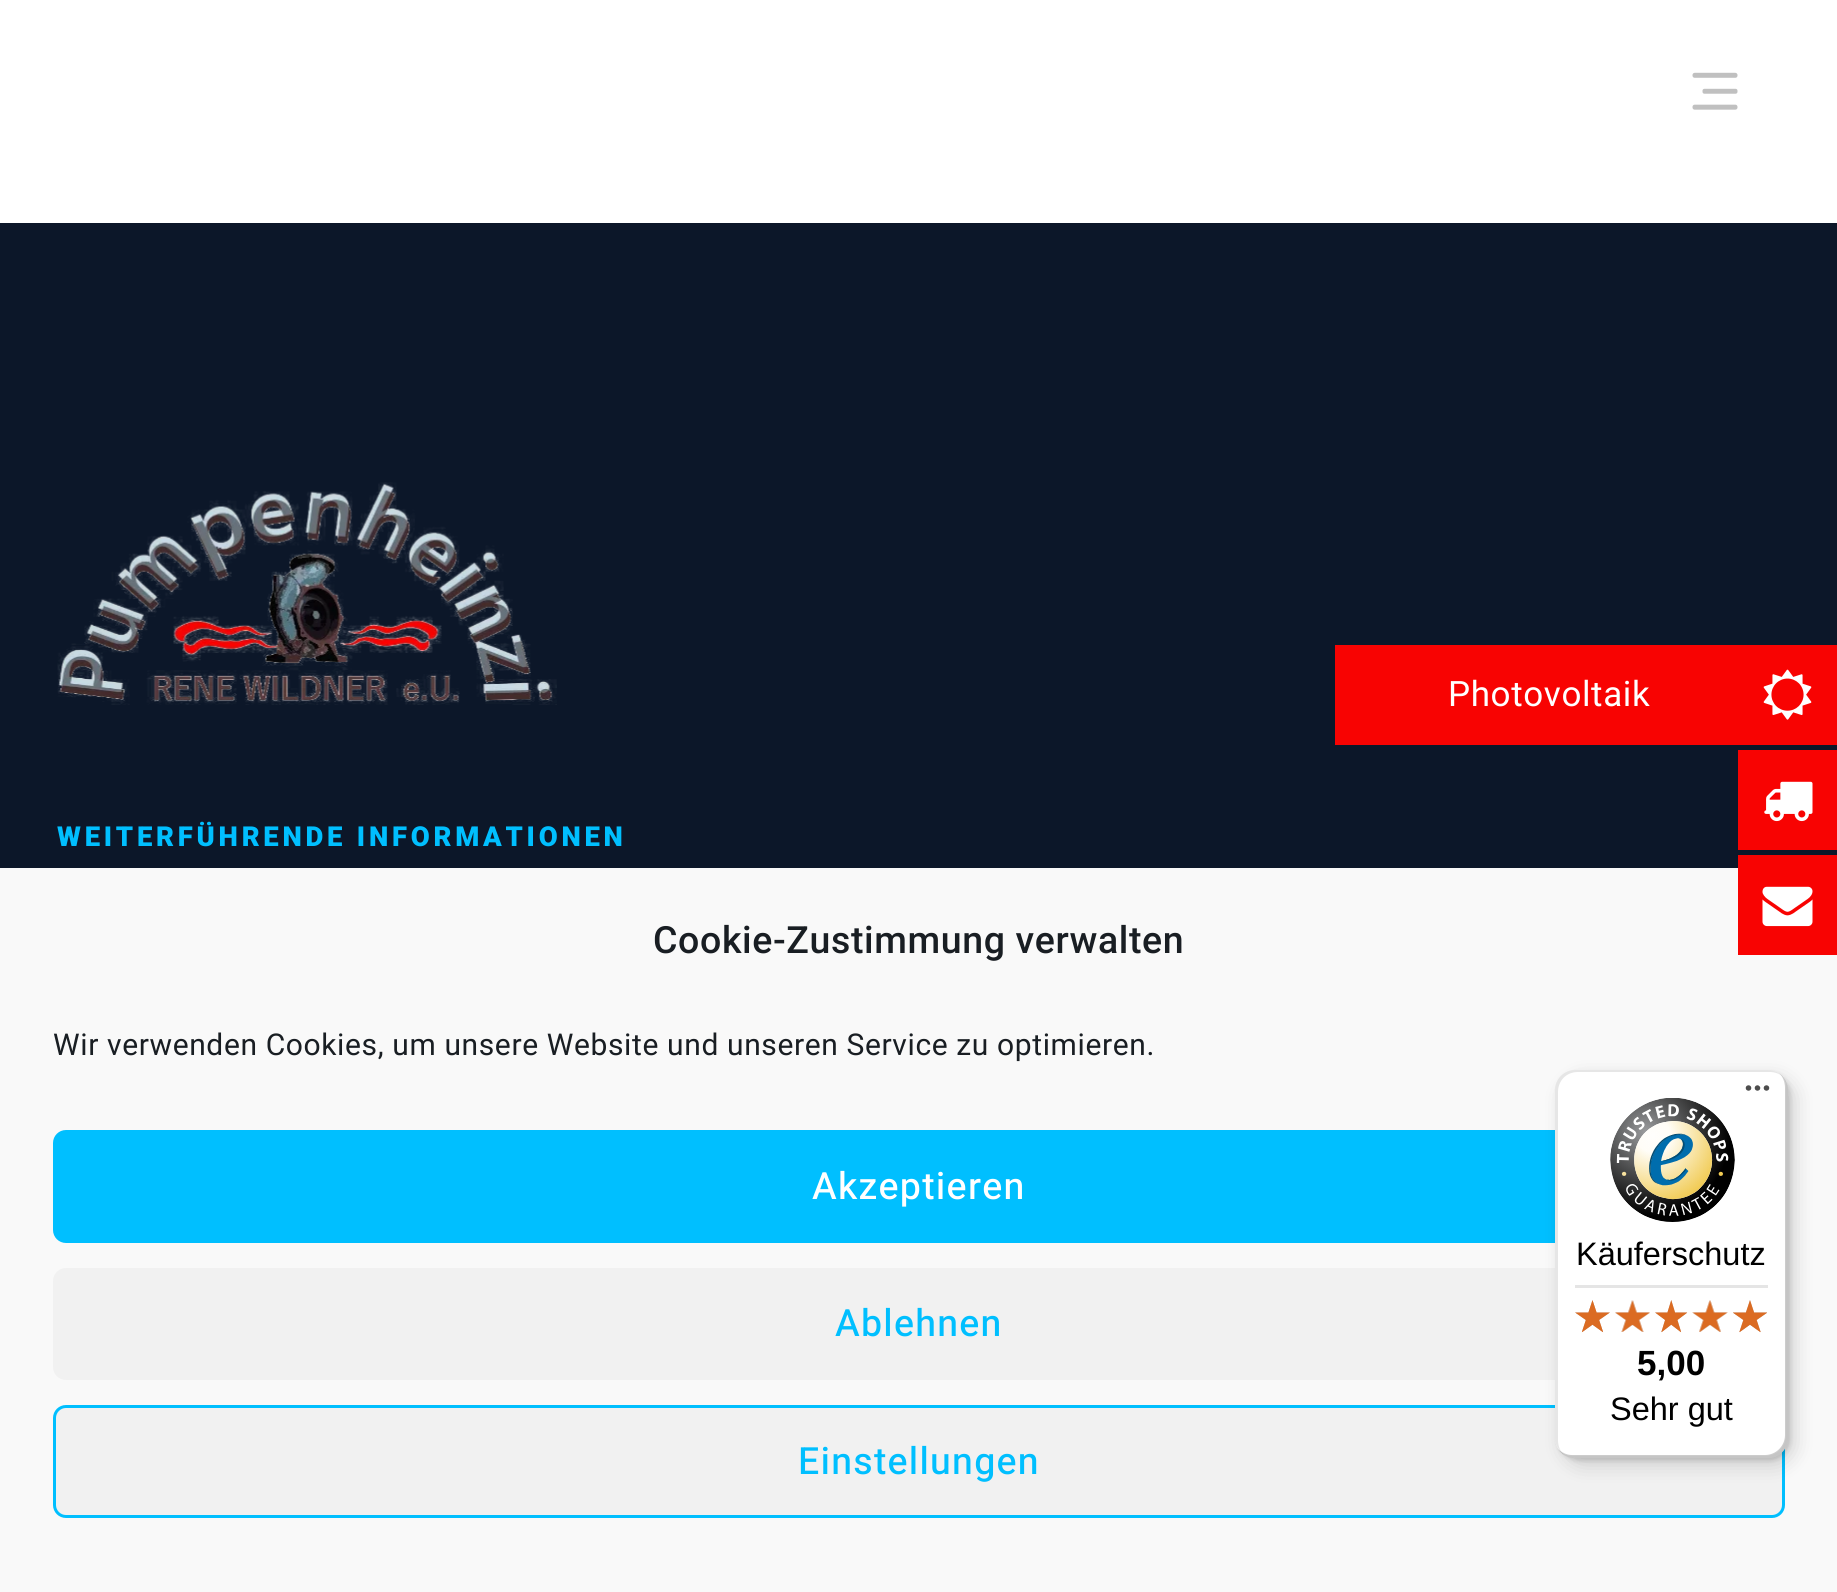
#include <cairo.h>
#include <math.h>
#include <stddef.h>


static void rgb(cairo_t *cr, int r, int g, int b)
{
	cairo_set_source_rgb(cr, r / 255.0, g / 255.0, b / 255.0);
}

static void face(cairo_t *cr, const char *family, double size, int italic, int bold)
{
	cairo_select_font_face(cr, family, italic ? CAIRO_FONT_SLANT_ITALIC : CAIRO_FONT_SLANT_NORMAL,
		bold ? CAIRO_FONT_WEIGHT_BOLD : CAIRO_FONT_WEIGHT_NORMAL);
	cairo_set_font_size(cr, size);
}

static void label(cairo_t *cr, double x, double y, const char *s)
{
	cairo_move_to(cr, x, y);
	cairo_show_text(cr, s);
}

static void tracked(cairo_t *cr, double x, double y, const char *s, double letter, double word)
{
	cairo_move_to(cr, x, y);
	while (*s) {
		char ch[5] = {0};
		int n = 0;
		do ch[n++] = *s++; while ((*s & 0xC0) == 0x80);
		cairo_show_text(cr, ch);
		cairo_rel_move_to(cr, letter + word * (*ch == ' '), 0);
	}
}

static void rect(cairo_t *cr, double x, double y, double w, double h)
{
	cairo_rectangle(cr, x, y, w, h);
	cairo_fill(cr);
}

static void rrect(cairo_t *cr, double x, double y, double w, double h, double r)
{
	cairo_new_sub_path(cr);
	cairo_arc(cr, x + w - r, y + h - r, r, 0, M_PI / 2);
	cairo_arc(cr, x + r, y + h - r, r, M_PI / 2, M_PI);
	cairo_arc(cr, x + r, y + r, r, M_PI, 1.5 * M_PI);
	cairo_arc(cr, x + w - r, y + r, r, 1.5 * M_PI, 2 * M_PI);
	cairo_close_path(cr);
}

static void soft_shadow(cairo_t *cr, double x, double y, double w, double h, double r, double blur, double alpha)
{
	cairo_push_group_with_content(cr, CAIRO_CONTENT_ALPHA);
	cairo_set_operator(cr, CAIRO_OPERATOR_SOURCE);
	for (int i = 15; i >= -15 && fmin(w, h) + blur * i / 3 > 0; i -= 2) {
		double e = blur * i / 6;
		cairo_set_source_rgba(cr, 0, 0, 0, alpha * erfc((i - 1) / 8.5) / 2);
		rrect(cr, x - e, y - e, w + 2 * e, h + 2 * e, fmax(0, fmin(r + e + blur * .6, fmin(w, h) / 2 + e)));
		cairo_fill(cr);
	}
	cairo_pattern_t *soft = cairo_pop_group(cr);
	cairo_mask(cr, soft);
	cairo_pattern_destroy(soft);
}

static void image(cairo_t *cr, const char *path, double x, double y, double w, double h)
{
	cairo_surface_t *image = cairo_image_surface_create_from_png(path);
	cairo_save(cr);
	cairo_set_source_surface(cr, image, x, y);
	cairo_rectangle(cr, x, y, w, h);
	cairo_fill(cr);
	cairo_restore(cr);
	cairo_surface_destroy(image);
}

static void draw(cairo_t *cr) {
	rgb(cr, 255, 255, 255);
	cairo_paint(cr);
	rgb(cr, 12, 23, 41);
	rect(cr, 0, 223, 1837, 645);
	rgb(cr, 248, 3, 2);
	rect(cr, 1335, 645, 502, 100);
	face(cr, "Roboto", 35, 0, 0);
	rgb(cr, 255, 255, 255);
	tracked(cr, 1448, 706, "Photovoltaik", 0.62, 0);
	image(cr, "image0.png", 1763, 669, 49, 51);
	rgb(cr, 248, 3, 2);
	rect(cr, 1738, 750, 99, 100);
	image(cr, "image1.png", 1764, 781, 49, 41);
	rgb(cr, 249, 249, 249);
	rect(cr, 0, 868, 1837, 724);
	rgb(cr, 248, 3, 2);
	rect(cr, 1738, 855, 99, 100);
	image(cr, "image2.png", 1762, 886, 51, 41);
	image(cr, "image3.png", 1692, 72, 46, 38);
	image(cr, "image4.png", 57, 482, 500, 223);
	face(cr, "Roboto Black", 27.5, 0, 0);
	rgb(cr, 0, 191, 255);
	tracked(cr, 57, 846, "WEITERFÜHRENDE INFORMATIONEN", 3.75, 0);
	face(cr, "Roboto Medium", 37.5, 0, 0);
	rgb(cr, 25, 30, 35);
	tracked(cr, 653, 953, "Cookie-Zustimmung verwalten", 0.62, 0);
	face(cr, "Roboto", 30, 0, 0);
	tracked(cr, 53, 1055, "Wir verwenden Cookies, um unsere Website und unseren Service zu optimieren.", 0.62, 0);
	rgb(cr, 0, 191, 255);
	rrect(cr, 54.5, 1131.5, 1729, 110, 11.5);
	cairo_fill_preserve(cr);
	cairo_set_line_width(cr, 3);
	cairo_stroke(cr);
	face(cr, "Heebo Medium", 37.5, 0, 0);
	rgb(cr, 255, 255, 255);
	tracked(cr, 812, 1199, "Akzeptieren", 1.25, 0);
	rgb(cr, 241, 241, 241);
	rrect(cr, 53, 1268, 1732, 112, 13);
	cairo_fill(cr);
	rgb(cr, 0, 191, 255);
	tracked(cr, 835, 1336, "Ablehnen", 1.25, 0);
	rgb(cr, 241, 241, 241);
	rrect(cr, 54.5, 1406.5, 1729, 110, 11.5);
	cairo_fill_preserve(cr);
	rgb(cr, 0, 191, 255);
	cairo_stroke(cr);
	tracked(cr, 798, 1474, "Einstellungen", 1.25, 0);
	rgb(cr, 0, 0, 0);
	soft_shadow(cr, 1563, 1078, 232, 387, 20, 10, 0.15);
	soft_shadow(cr, 1558, 1073, 232, 387, 20, 2.5, 0.15);
	rgb(cr, 255, 255, 255);
	rrect(cr, 1555, 1070, 233, 388, 20);
	cairo_fill(cr);
	cairo_set_source_rgba(cr, 0, 0, 0, 0.1);
	cairo_new_path(cr);
	cairo_move_to(cr, 1578, 1072);
	cairo_line_to(cr, 1770, 1072);
	cairo_curve_to(cr, 1775, 1072, 1780, 1074, 1783, 1077);
	cairo_curve_to(cr, 1780, 1073, 1774, 1070, 1768, 1070);
	cairo_line_to(cr, 1575, 1070);
	cairo_curve_to(cr, 1564, 1070, 1555, 1079, 1555, 1090);
	cairo_line_to(cr, 1555, 1438);
	cairo_curve_to(cr, 1555, 1445, 1559, 1451, 1564, 1455);
	cairo_curve_to(cr, 1560, 1451, 1558, 1446, 1558, 1440);
	cairo_line_to(cr, 1558, 1092);
	cairo_curve_to(cr, 1558, 1081, 1566, 1072, 1578, 1072);
	cairo_close_path(cr);
	cairo_fill(cr);
	cairo_set_source_rgba(cr, 0, 0, 0, 0.2);
	cairo_new_path(cr);
	cairo_move_to(cr, 1559, 1450);
	cairo_curve_to(cr, 1563, 1455, 1569, 1458, 1575, 1458);
	cairo_line_to(cr, 1768, 1458);
	cairo_curve_to(cr, 1779, 1458, 1788, 1449, 1788, 1438);
	cairo_line_to(cr, 1788, 1090);
	cairo_curve_to(cr, 1788, 1083, 1784, 1077, 1779, 1073);
	cairo_curve_to(cr, 1783, 1077, 1785, 1082, 1785, 1088);
	cairo_line_to(cr, 1785, 1435);
	cairo_curve_to(cr, 1785, 1446, 1776, 1455, 1765, 1455);
	cairo_line_to(cr, 1572, 1455);
	cairo_curve_to(cr, 1567, 1455, 1563, 1453, 1559, 1450);
	cairo_close_path(cr);
	cairo_fill(cr);
	cairo_set_source_rgba(cr, 0.196, 0.196, 0.196, 0.2);
	cairo_new_path(cr);
	cairo_move_to(cr, 1557, 1448);
	cairo_curve_to(cr, 1561, 1454, 1567, 1458, 1575, 1458);
	cairo_line_to(cr, 1768, 1458);
	cairo_curve_to(cr, 1779, 1458, 1788, 1449, 1788, 1438);
	cairo_line_to(cr, 1788, 1090);
	cairo_curve_to(cr, 1788, 1084, 1785, 1078, 1781, 1075);
	cairo_curve_to(cr, 1784, 1078, 1786, 1083, 1786, 1088);
	cairo_line_to(cr, 1786, 1436);
	cairo_curve_to(cr, 1786, 1447, 1777, 1456, 1766, 1456);
	cairo_line_to(cr, 1574, 1456);
	cairo_curve_to(cr, 1567, 1456, 1561, 1453, 1557, 1448);
	cairo_close_path(cr);
	cairo_fill(cr);
	cairo_set_source_rgba(cr, 1, 1, 1, 0.3);
	cairo_new_path(cr);
	cairo_move_to(cr, 1557, 1446);
	cairo_curve_to(cr, 1560, 1453, 1567, 1458, 1575, 1458);
	cairo_line_to(cr, 1768, 1458);
	cairo_curve_to(cr, 1779, 1458, 1788, 1449, 1788, 1438);
	cairo_line_to(cr, 1788, 1090);
	cairo_curve_to(cr, 1788, 1082, 1783, 1075, 1776, 1072);
	cairo_curve_to(cr, 1782, 1075, 1786, 1082, 1786, 1089);
	cairo_line_to(cr, 1786, 1436);
	cairo_curve_to(cr, 1786, 1447, 1777, 1456, 1766, 1456);
	cairo_line_to(cr, 1574, 1456);
	cairo_curve_to(cr, 1567, 1456, 1560, 1452, 1557, 1446);
	cairo_close_path(cr);
	cairo_fill(cr);
	image(cr, "image5.png", 1745, 1085, 25, 6);
	image(cr, "image6.png", 1610, 1098, 125, 124);
	face(cr, "Liberation Sans", 32.5, 0, 0);
	rgb(cr, 0, 0, 0);
	label(cr, 1576, 1265, "Käuferschutz");
	rgb(cr, 229, 229, 229);
	rect(cr, 1575, 1285, 193, 3);
	image(cr, "image7.png", 1575, 1300, 35, 32);
	image(cr, "image8.png", 1615, 1300, 35, 32);
	image(cr, "image9.png", 1655, 1300, 32, 32);
	image(cr, "image10.png", 1692, 1300, 36, 32);
	image(cr, "image11.png", 1733, 1300, 34, 32);
	image(cr, "image12.png", 1575, 1300, 35, 33);
	image(cr, "image13.png", 1615, 1300, 35, 32);
	image(cr, "image14.png", 1655, 1300, 33, 33);
	image(cr, "image15.png", 1692, 1300, 36, 32);
	image(cr, "image16.png", 1733, 1300, 34, 33);
	face(cr, "Liberation Sans", 35, 0, 1);
	rgb(cr, 0, 0, 0);
	label(cr, 1637, 1375, "5,00");
	face(cr, "Liberation Sans", 32.5, 0, 0);
	label(cr, 1610, 1420, "Sehr gut");
}

int main(void) {
	cairo_surface_t *surface = cairo_image_surface_create(CAIRO_FORMAT_RGB24, 1837, 1592);
	cairo_t *cr = cairo_create(surface);
	cairo_font_options_t *options = cairo_font_options_create();
	cairo_font_options_set_hint_metrics(options, CAIRO_HINT_METRICS_OFF);
	cairo_font_options_set_hint_style(options, CAIRO_HINT_STYLE_NONE);
	cairo_set_font_options(cr, options);
	cairo_set_miter_limit(cr, 4);
	draw(cr);
	cairo_surface_write_to_png(surface, "render.png");
	cairo_font_options_destroy(options);
	cairo_destroy(cr);
	cairo_surface_destroy(surface);
	return 0;
}
